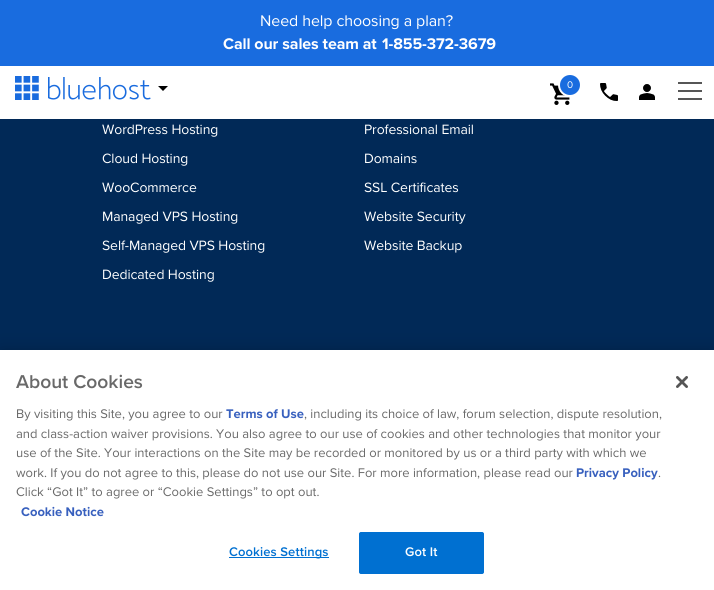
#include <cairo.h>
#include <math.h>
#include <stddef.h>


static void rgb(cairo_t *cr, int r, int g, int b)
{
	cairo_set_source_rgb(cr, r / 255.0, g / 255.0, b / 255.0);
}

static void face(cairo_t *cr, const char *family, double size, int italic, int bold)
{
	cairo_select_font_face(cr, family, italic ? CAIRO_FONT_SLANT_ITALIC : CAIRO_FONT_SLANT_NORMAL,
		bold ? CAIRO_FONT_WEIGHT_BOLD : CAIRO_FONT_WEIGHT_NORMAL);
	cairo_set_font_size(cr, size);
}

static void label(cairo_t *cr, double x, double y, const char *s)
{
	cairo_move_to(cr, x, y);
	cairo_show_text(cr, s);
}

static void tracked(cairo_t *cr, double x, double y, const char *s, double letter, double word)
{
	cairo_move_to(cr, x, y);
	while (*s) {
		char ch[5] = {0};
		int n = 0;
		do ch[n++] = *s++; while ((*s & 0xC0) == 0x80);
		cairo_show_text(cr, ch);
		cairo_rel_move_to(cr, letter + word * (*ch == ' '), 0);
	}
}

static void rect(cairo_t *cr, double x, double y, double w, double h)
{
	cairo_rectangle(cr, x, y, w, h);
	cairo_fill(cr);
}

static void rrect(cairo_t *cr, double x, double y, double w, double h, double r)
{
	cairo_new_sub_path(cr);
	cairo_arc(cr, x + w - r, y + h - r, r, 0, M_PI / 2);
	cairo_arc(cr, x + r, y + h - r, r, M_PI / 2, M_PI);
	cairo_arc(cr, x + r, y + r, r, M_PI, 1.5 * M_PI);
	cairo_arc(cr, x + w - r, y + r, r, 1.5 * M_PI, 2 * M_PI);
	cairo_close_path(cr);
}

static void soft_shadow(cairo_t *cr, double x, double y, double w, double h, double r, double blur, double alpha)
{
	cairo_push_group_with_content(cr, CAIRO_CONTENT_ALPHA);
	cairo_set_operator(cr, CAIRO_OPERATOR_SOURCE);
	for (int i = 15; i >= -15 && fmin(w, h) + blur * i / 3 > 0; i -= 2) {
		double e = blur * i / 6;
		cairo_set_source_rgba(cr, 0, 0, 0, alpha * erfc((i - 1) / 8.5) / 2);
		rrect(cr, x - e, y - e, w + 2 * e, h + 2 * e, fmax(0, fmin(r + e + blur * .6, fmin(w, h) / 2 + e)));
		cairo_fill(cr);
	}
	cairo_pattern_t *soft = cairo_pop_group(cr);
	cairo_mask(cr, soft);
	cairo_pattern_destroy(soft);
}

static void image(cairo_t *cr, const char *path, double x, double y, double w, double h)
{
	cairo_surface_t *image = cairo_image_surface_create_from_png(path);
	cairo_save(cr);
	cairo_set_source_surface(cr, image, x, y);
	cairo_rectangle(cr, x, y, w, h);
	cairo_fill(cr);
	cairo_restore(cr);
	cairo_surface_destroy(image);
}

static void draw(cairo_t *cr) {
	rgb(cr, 1, 41, 87);
	cairo_paint(cr);
	rgb(cr, 255, 255, 255);
	rect(cr, 0, 66, 714, 53);
	rgb(cr, 25, 108, 223);
	rect(cr, 0, 0, 714, 66);
	face(cr, "Proxima Nova", 16, 0, 0);
	rgb(cr, 255, 255, 255);
	tracked(cr, 260, 26, "Need help choosing a plan?", -0.1, 0);
	face(cr, "Proxima Nova", 16, 0, 1);
	tracked(cr, 223, 49, "Call our sales team at", -0.1, 0);
	tracked(cr, 382, 49, "1-855-372-3679", -0.1, 0);
	image(cr, "image0.png", 15, 76, 136, 24);
	rgb(cr, 0, 0, 0);
	cairo_new_path(cr);
	cairo_move_to(cr, 158, 86);
	cairo_line_to(cr, 163, 91);
	cairo_line_to(cr, 168, 86);
	cairo_close_path(cr);
	cairo_fill(cr);
	image(cr, "image1.png", 550, 83, 20, 22);
	rgb(cr, 25, 108, 223);
	cairo_arc(cr, 570, 85, 11, 0, 2 * M_PI);
	cairo_fill_preserve(cr);
	rgb(cr, 255, 255, 255);
	cairo_stroke(cr);
	face(cr, "Proxima Nova", 10, 0, 0);
	tracked(cr, 567, 88, "0", -0.1, 0);
	image(cr, "image2.png", 600, 83, 18, 18);
	image(cr, "image3.png", 639, 84, 16, 16);
	rgb(cr, 86, 86, 86);
	rect(cr, 678, 90, 24, 2);
	rect(cr, 678, 82, 24, 2);
	rect(cr, 678, 98, 24, 2);
	face(cr, "Proxima Nova", 14, 0, 0);
	rgb(cr, 255, 255, 255);
	tracked(cr, 102, 134, "WordPress Hosting", -0.1, 0);
	tracked(cr, 364, 134, "Professional Email", -0.1, 0);
	tracked(cr, 102, 163, "Cloud Hosting", -0.1, 0);
	tracked(cr, 364, 163, "Domains", -0.1, 0);
	tracked(cr, 102, 192, "WooCommerce", -0.1, 0);
	tracked(cr, 364, 192, "SSL Certificates", -0.1, 0);
	tracked(cr, 102, 221, "Managed VPS Hosting", -0.1, 0);
	tracked(cr, 364, 221, "Website Security", -0.1, 0);
	tracked(cr, 102, 250, "Self-Managed VPS Hosting", -0.1, 0);
	tracked(cr, 364, 250, "Website Backup", -0.1, 0);
	tracked(cr, 102, 279, "Dedicated Hosting", -0.1, 0);
	rgb(cr, 0, 0, 0);
	soft_shadow(cr, 0, 350, 714, 240, 0, 9, 0.2);
	rgb(cr, 255, 255, 255);
	rect(cr, 0, 350, 714, 240);
	face(cr, "Proxima Nova SemiBold", 19.25, 0, 0);
	rgb(cr, 105, 105, 105);
	label(cr, 16, 388, "About Cookies");
	face(cr, "Proxima Nova", 13, 0, 0);
	label(cr, 16, 418, "By visiting this Site, you agree to our");
	face(cr, "Proxima Nova", 13, 0, 1);
	rgb(cr, 56, 96, 190);
	label(cr, 226, 418, "Terms of Use");
	face(cr, "Proxima Nova", 13, 0, 0);
	rgb(cr, 105, 105, 105);
	label(cr, 304, 418, ", including its choice of law, forum selection, dispute resolution,");
	label(cr, 16, 438, "and class-action waiver provisions. You also agree to our use of cookies and other technologies that monitor your");
	label(cr, 16, 457, "use of the Site. Your interactions on the Site may be recorded or monitored by us or a third party with which we");
	label(cr, 16, 477, "work. If you do not agree to this, please do not use our Site. For more information, please read our");
	face(cr, "Proxima Nova", 13, 0, 1);
	rgb(cr, 56, 96, 190);
	label(cr, 576, 477, "Privacy Policy");
	face(cr, "Proxima Nova", 13, 0, 0);
	rgb(cr, 105, 105, 105);
	label(cr, 658, 477, ".");
	label(cr, 16, 496, "Click “Got It” to agree or “Cookie Settings” to opt out.");
	face(cr, "Proxima Nova", 13, 0, 1);
	rgb(cr, 56, 96, 190);
	label(cr, 21, 516, "Cookie Notice");
	rgb(cr, 0, 112, 209);
	rect(cr, 229, 557, 100, 1);
	face(cr, "Proxima Nova SemiBold", 13, 0, 0);
	tracked(cr, 229, 556, "Cookies Settings", 0.1, 0);
	rrect(cr, 359.5, 532.5, 124, 41, 1.5);
	cairo_fill_preserve(cr);
	cairo_set_line_width(cr, 1);
	cairo_stroke(cr);
	rgb(cr, 255, 255, 255);
	tracked(cr, 405, 556, "Got It", 0.1, 0);
	image(cr, "image4.png", 676, 376, 12, 12);
}

int main(void) {
	cairo_surface_t *surface = cairo_image_surface_create(CAIRO_FORMAT_RGB24, 714, 590);
	cairo_t *cr = cairo_create(surface);
	cairo_font_options_t *options = cairo_font_options_create();
	cairo_font_options_set_hint_metrics(options, CAIRO_HINT_METRICS_OFF);
	cairo_font_options_set_hint_style(options, CAIRO_HINT_STYLE_NONE);
	cairo_set_font_options(cr, options);
	cairo_set_miter_limit(cr, 4);
	draw(cr);
	cairo_surface_write_to_png(surface, "render.png");
	cairo_font_options_destroy(options);
	cairo_destroy(cr);
	cairo_surface_destroy(surface);
	return 0;
}
